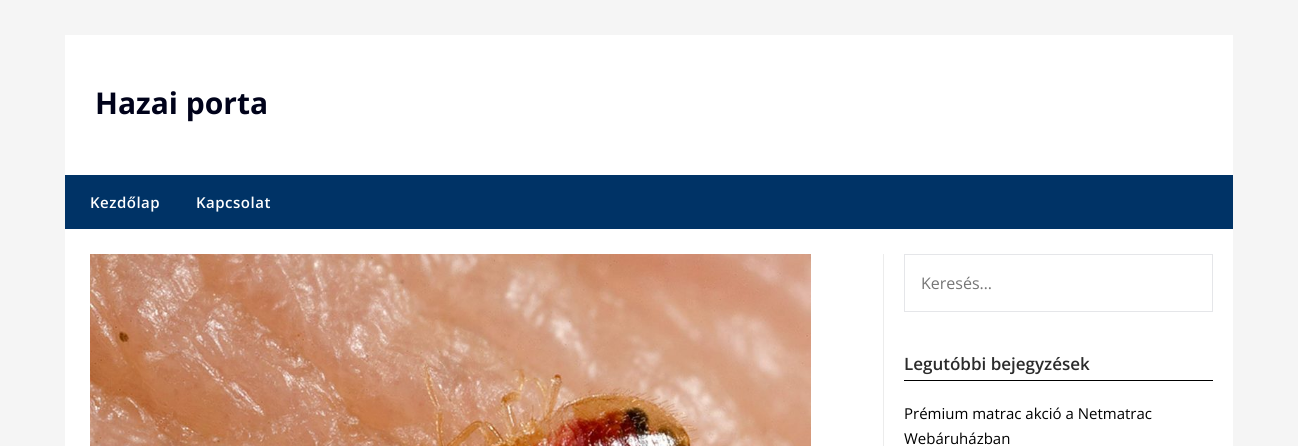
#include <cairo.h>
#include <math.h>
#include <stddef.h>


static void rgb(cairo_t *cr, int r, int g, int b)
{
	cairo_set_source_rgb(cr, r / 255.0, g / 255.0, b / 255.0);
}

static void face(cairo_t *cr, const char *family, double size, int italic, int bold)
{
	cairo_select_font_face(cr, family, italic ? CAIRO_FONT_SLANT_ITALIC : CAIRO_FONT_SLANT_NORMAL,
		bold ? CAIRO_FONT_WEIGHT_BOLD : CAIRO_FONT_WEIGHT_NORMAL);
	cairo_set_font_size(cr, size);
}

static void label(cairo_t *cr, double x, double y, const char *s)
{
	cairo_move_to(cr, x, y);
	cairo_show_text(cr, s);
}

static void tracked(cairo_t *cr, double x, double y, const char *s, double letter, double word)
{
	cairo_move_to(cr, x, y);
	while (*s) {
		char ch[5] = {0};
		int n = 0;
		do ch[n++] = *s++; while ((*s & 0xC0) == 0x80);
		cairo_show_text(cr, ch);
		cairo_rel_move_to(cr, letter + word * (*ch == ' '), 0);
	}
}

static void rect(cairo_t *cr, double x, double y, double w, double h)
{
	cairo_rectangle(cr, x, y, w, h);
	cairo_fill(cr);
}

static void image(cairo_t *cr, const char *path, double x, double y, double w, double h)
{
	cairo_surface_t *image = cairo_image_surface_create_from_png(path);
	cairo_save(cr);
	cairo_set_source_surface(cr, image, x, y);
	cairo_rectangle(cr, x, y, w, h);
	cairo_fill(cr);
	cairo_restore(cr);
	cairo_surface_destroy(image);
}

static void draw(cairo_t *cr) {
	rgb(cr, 245, 245, 245);
	cairo_paint(cr);
	rgb(cr, 255, 255, 255);
	rect(cr, 65, 35, 1168, 140);
	face(cr, "Open Sans", 30, 0, 1);
	rgb(cr, 0, 2, 26);
	label(cr, 95, 114, "Hazai porta");
	rgb(cr, 0, 51, 102);
	rect(cr, 65, 175, 1168, 54);
	face(cr, "Open Sans SemiBold", 15, 0, 0);
	rgb(cr, 255, 255, 255);
	tracked(cr, 90, 208, "Kezdőlap", 0.5, 0);
	tracked(cr, 196, 208, "Kapcsolat", 0.5, 0);
	rect(cr, 65, 229, 1168, 217);
	image(cr, "image0.png", 90, 254, 721, 192);
	rgb(cr, 236, 236, 236);
	rect(cr, 883, 254, 1, 192);
	cairo_rectangle(cr, 904.5, 254.5, 308, 57);
	rgb(cr, 229, 230, 233);
	cairo_set_line_width(cr, 1);
	cairo_stroke(cr);
	face(cr, "Open Sans", 16, 0, 0);
	rgb(cr, 117, 117, 117);
	label(cr, 921, 289, "Keresés…");
	rgb(cr, 0, 0, 0);
	rect(cr, 904, 380, 309, 1);
	face(cr, "Open Sans SemiBold", 17, 0, 0);
	rgb(cr, 43, 43, 43);
	label(cr, 904, 370, "Legutóbbi bejegyzések");
	face(cr, "Open Sans", 15, 0, 0);
	rgb(cr, 0, 0, 0);
	label(cr, 904, 419, "Prémium matrac akció a Netmatrac");
	label(cr, 904, 444, "Webáruházban");
}

int main(void) {
	cairo_surface_t *surface = cairo_image_surface_create(CAIRO_FORMAT_RGB24, 1298, 446);
	cairo_t *cr = cairo_create(surface);
	cairo_font_options_t *options = cairo_font_options_create();
	cairo_font_options_set_hint_metrics(options, CAIRO_HINT_METRICS_OFF);
	cairo_font_options_set_hint_style(options, CAIRO_HINT_STYLE_NONE);
	cairo_set_font_options(cr, options);
	cairo_set_miter_limit(cr, 4);
	draw(cr);
	cairo_surface_write_to_png(surface, "render.png");
	cairo_font_options_destroy(options);
	cairo_destroy(cr);
	cairo_surface_destroy(surface);
	return 0;
}
